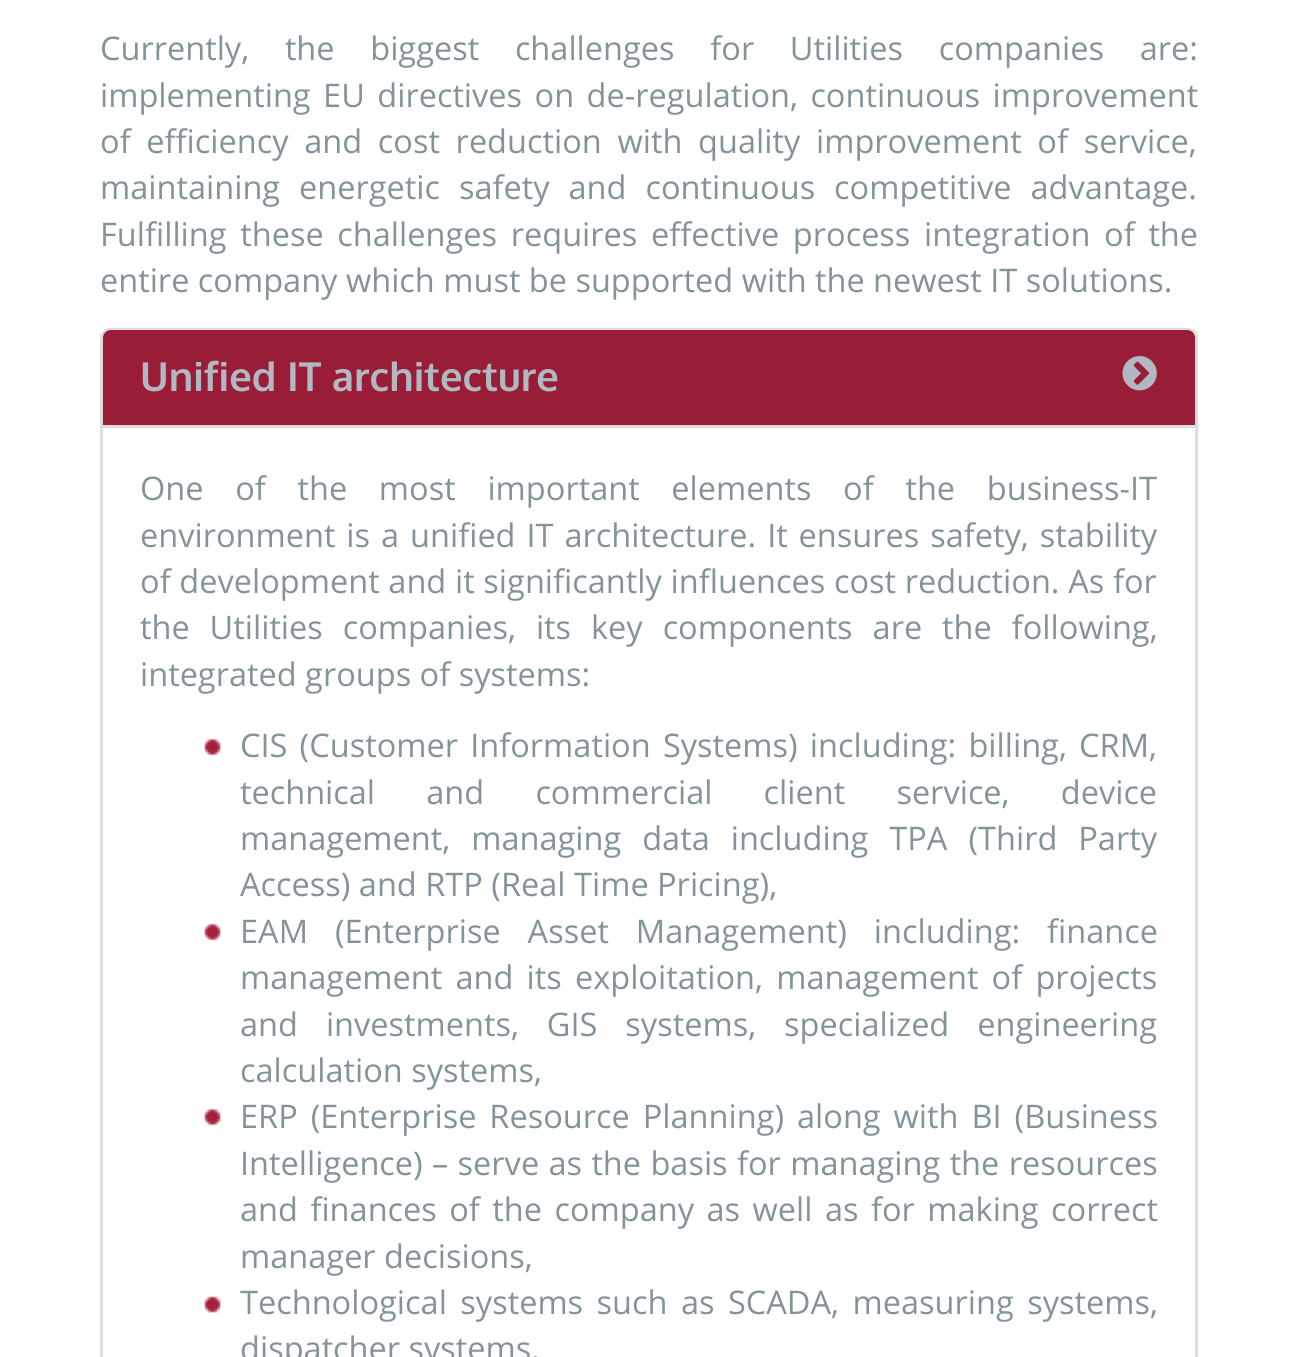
#include <cairo.h>
#include <math.h>
#include <stddef.h>


static void rgb(cairo_t *cr, int r, int g, int b)
{
	cairo_set_source_rgb(cr, r / 255.0, g / 255.0, b / 255.0);
}

static void face(cairo_t *cr, const char *family, double size, int italic, int bold)
{
	cairo_select_font_face(cr, family, italic ? CAIRO_FONT_SLANT_ITALIC : CAIRO_FONT_SLANT_NORMAL,
		bold ? CAIRO_FONT_WEIGHT_BOLD : CAIRO_FONT_WEIGHT_NORMAL);
	cairo_set_font_size(cr, size);
}

static void label(cairo_t *cr, double x, double y, const char *s)
{
	cairo_move_to(cr, x, y);
	cairo_show_text(cr, s);
}

static void tracked(cairo_t *cr, double x, double y, const char *s, double letter, double word)
{
	cairo_move_to(cr, x, y);
	while (*s) {
		char ch[5] = {0};
		int n = 0;
		do ch[n++] = *s++; while ((*s & 0xC0) == 0x80);
		cairo_show_text(cr, ch);
		cairo_rel_move_to(cr, letter + word * (*ch == ' '), 0);
	}
}

static void rect(cairo_t *cr, double x, double y, double w, double h)
{
	cairo_rectangle(cr, x, y, w, h);
	cairo_fill(cr);
}

static void rrect(cairo_t *cr, double x, double y, double w, double h, double r)
{
	cairo_new_sub_path(cr);
	cairo_arc(cr, x + w - r, y + h - r, r, 0, M_PI / 2);
	cairo_arc(cr, x + r, y + h - r, r, M_PI / 2, M_PI);
	cairo_arc(cr, x + r, y + r, r, M_PI, 1.5 * M_PI);
	cairo_arc(cr, x + w - r, y + r, r, 1.5 * M_PI, 2 * M_PI);
	cairo_close_path(cr);
}

static void image(cairo_t *cr, const char *path, double x, double y, double w, double h)
{
	cairo_surface_t *image = cairo_image_surface_create_from_png(path);
	cairo_save(cr);
	cairo_set_source_surface(cr, image, x, y);
	cairo_rectangle(cr, x, y, w, h);
	cairo_fill(cr);
	cairo_restore(cr);
	cairo_surface_destroy(image);
}

static void draw(cairo_t *cr) {
	rgb(cr, 255, 255, 255);
	cairo_paint(cr);
	face(cr, "Open Sans", 32.5, 0, 0);
	rgb(cr, 131, 147, 154);
	tracked(cr, 100, 60, "Currently, the biggest challenges for Utilities companies are:", 0, 27.25);
	tracked(cr, 100, 107, "implementing EU directives on de-regulation, continuous improvement", 0, 4);
	tracked(cr, 100, 153, "of efficiency and cost reduction with quality improvement of service,", 0, 7.25);
	tracked(cr, 100, 199, "maintaining energetic safety and continuous competitive advantage.", 0, 10.5);
	tracked(cr, 100, 246, "Fulfilling these challenges requires effective process integration of the", 0, 5.25);
	label(cr, 100, 292, "entire company which must be supported with the newest IT solutions.");
	rrect(cr, 101.5, 329.5, 1095, 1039, 8.5);
	rgb(cr, 221, 221, 221);
	cairo_set_line_width(cr, 3);
	cairo_stroke(cr);
	rgb(cr, 154, 29, 56);
	cairo_new_path(cr);
	cairo_move_to(cr, 111, 330);
	cairo_line_to(cr, 1187, 330);
	cairo_curve_to(cr, 1191.5, 330, 1195, 333.5, 1195, 338);
	cairo_line_to(cr, 1195, 425);
	cairo_line_to(cr, 103, 425);
	cairo_line_to(cr, 103, 338);
	cairo_curve_to(cr, 103, 333.5, 106.5, 330, 111, 330);
	cairo_close_path(cr);
	cairo_fill(cr);
	face(cr, "Oxygen", 40, 0, 1);
	rgb(cr, 177, 184, 194);
	label(cr, 140, 391, "Unified IT architecture");
	image(cr, "image0.png", 1122, 356, 35, 35);
	rgb(cr, 221, 221, 221);
	rect(cr, 103, 425, 1092, 3);
	face(cr, "Open Sans", 32.5, 0, 0);
	rgb(cr, 131, 147, 154);
	tracked(cr, 140, 500, "One of the most important elements of the business-IT", 0, 23.25);
	tracked(cr, 140, 547, "environment is a unified IT architecture. It ensures safety, stability", 0, 2.5);
	tracked(cr, 140, 593, "of development and it significantly influences cost reduction. As for", 0, 0.25);
	tracked(cr, 140, 639, "the Utilities companies, its key components are the following,", 0, 11.5);
	label(cr, 140, 686, "integrated groups of systems:");
	image(cr, "image1.png", 204, 738, 17, 18);
	tracked(cr, 240, 757, "CIS (Customer Information Systems) including: billing, CRM,", 0, 3.75);
	tracked(cr, 240, 804, "technical and commercial client service, device", 0, 42.75);
	tracked(cr, 240, 850, "management, managing data including TPA (Third Party", 0, 12.5);
	label(cr, 240, 896, "Access) and RTP (Real Time Pricing),");
	image(cr, "image1.png", 204, 923, 17, 18);
	tracked(cr, 240, 943, "EAM (Enterprise Asset Management) including: finance", 0, 18.5);
	tracked(cr, 240, 989, "management and its exploitation, management of projects", 0, 4.75);
	tracked(cr, 240, 1036, "and investments, GIS systems, specialized engineering", 0, 19.5);
	label(cr, 240, 1082, "calculation systems,");
	image(cr, "image1.png", 204, 1108, 17, 18);
	tracked(cr, 240, 1128, "ERP (Enterprise Resource Planning) along with BI (Business", 0, 4.5);
	tracked(cr, 240, 1175, "Intelligence) – serve as the basis for managing the resources", 0, 0.9);
	tracked(cr, 240, 1221, "and finances of the company as well as for making correct", 0, 4);
	label(cr, 240, 1268, "manager decisions,");
	image(cr, "image2.png", 204, 1296, 17, 17);
	tracked(cr, 240, 1314, "Technological systems such as SCADA, measuring systems,", 0, 5);
	label(cr, 240, 1360, "dispatcher systems.");
}

int main(void) {
	cairo_surface_t *surface = cairo_image_surface_create(CAIRO_FORMAT_RGB24, 1308, 1357);
	cairo_t *cr = cairo_create(surface);
	cairo_font_options_t *options = cairo_font_options_create();
	cairo_font_options_set_hint_metrics(options, CAIRO_HINT_METRICS_OFF);
	cairo_font_options_set_hint_style(options, CAIRO_HINT_STYLE_NONE);
	cairo_set_font_options(cr, options);
	cairo_set_miter_limit(cr, 4);
	draw(cr);
	cairo_surface_write_to_png(surface, "render.png");
	cairo_font_options_destroy(options);
	cairo_destroy(cr);
	cairo_surface_destroy(surface);
	return 0;
}
